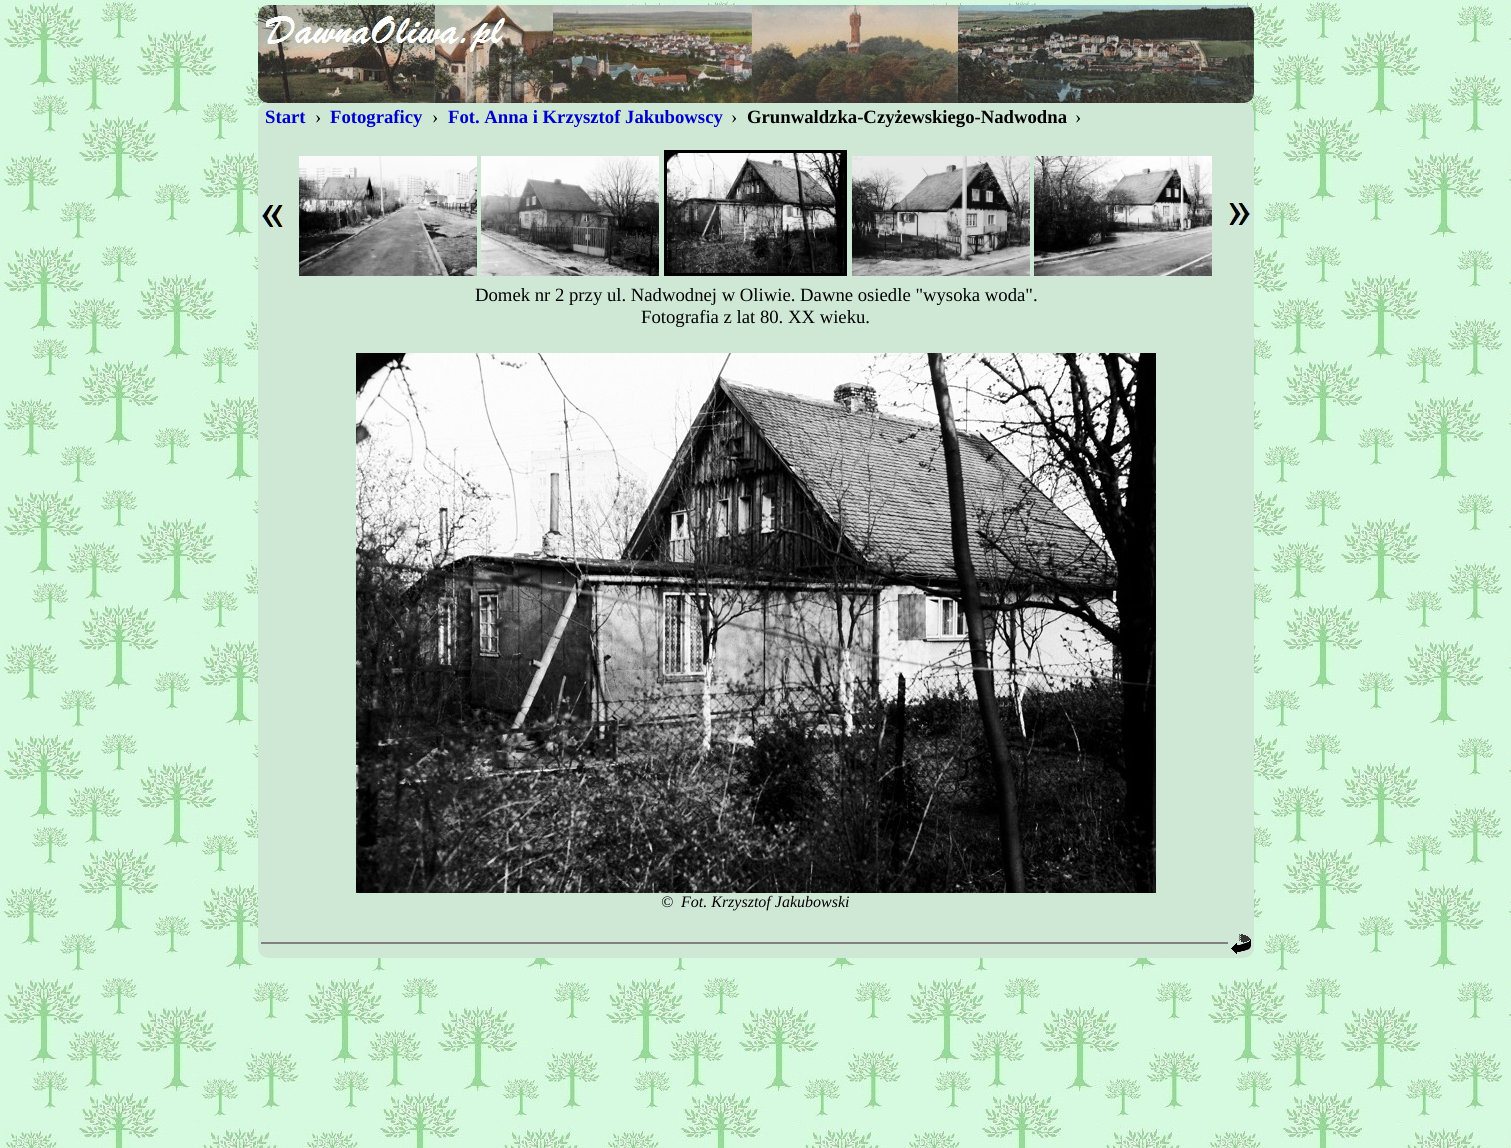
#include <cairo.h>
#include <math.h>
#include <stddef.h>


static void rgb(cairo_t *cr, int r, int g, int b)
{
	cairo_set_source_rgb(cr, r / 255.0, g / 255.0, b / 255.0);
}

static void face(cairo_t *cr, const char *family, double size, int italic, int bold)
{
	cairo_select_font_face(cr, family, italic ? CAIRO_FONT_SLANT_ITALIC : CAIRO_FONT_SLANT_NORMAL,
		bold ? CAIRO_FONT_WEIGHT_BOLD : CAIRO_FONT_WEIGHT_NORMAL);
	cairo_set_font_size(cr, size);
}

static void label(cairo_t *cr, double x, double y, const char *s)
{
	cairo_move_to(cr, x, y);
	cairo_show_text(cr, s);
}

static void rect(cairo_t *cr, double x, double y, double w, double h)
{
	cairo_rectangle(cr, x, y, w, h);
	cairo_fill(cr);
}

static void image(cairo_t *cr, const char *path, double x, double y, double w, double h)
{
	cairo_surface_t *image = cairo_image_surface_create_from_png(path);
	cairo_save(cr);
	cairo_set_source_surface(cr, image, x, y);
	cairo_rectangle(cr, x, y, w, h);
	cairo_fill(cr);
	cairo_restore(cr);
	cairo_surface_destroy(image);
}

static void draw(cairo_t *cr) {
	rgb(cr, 255, 255, 255);
	cairo_paint(cr);
	image(cr, "image0.png", 0, 0, 1511, 1148);
	image(cr, "image1.png", 258, 5, 996, 98);
	image(cr, "image2.png", 258, 103, 996, 855);
	face(cr, "Liberation Serif", 18.7, 0, 1);
	rgb(cr, 0, 0, 205);
	label(cr, 265, 123, "Start");
	face(cr, "Liberation Serif", 18.7, 0, 0);
	rgb(cr, 0, 0, 0);
	label(cr, 315, 123, "›");
	face(cr, "Liberation Serif", 18.7, 0, 1);
	rgb(cr, 0, 0, 205);
	label(cr, 330, 123, "Fotograficy");
	face(cr, "Liberation Serif", 18.7, 0, 0);
	rgb(cr, 0, 0, 0);
	label(cr, 432, 123, "›");
	face(cr, "Liberation Serif", 18.7, 0, 1);
	rgb(cr, 0, 0, 205);
	label(cr, 448, 123, "Fot. Anna i Krzysztof Jakubowscy");
	face(cr, "Liberation Serif", 18.7, 0, 0);
	rgb(cr, 0, 0, 0);
	label(cr, 731, 123, "›");
	face(cr, "Liberation Serif", 18.7, 0, 1);
	label(cr, 747, 123, "Grunwaldzka-Czyżewskiego-Nadwodna");
	face(cr, "Liberation Serif", 18.7, 0, 0);
	label(cr, 1075, 123, "›");
	cairo_rectangle(cr, 665.5, 151.5, 180, 123);
	cairo_set_line_width(cr, 3);
	cairo_stroke(cr);
	image(cr, "image3.png", 261, 198, 25, 32);
	image(cr, "image4.png", 299, 156, 178, 120);
	image(cr, "image5.png", 481, 156, 178, 120);
	image(cr, "image6.png", 667, 153, 177, 120);
	image(cr, "image7.png", 852, 156, 178, 120);
	image(cr, "image8.png", 1034, 156, 178, 120);
	image(cr, "image9.png", 1226, 198, 25, 32);
	label(cr, 475, 301, "Domek nr 2 przy ul. Nadwodnej w Oliwie. Dawne osiedle \"wysoka woda\".");
	label(cr, 641, 323, "Fotografia z lat 80. XX wieku.");
	image(cr, "image10.png", 356, 353, 800, 540);
	face(cr, "Liberation Serif", 16, 1, 0);
	label(cr, 661, 907, "©");
	label(cr, 681, 907, "Fot. Krzysztof Jakubowski");
	rgb(cr, 128, 128, 128);
	rect(cr, 261, 942, 967, 2);
	image(cr, "image11.png", 1231, 934, 20, 20);
}

int main(void) {
	cairo_surface_t *surface = cairo_image_surface_create(CAIRO_FORMAT_RGB24, 1511, 1148);
	cairo_t *cr = cairo_create(surface);
	cairo_font_options_t *options = cairo_font_options_create();
	cairo_font_options_set_hint_metrics(options, CAIRO_HINT_METRICS_OFF);
	cairo_font_options_set_hint_style(options, CAIRO_HINT_STYLE_NONE);
	cairo_set_font_options(cr, options);
	cairo_set_miter_limit(cr, 4);
	draw(cr);
	cairo_surface_write_to_png(surface, "render.png");
	cairo_font_options_destroy(options);
	cairo_destroy(cr);
	cairo_surface_destroy(surface);
	return 0;
}
